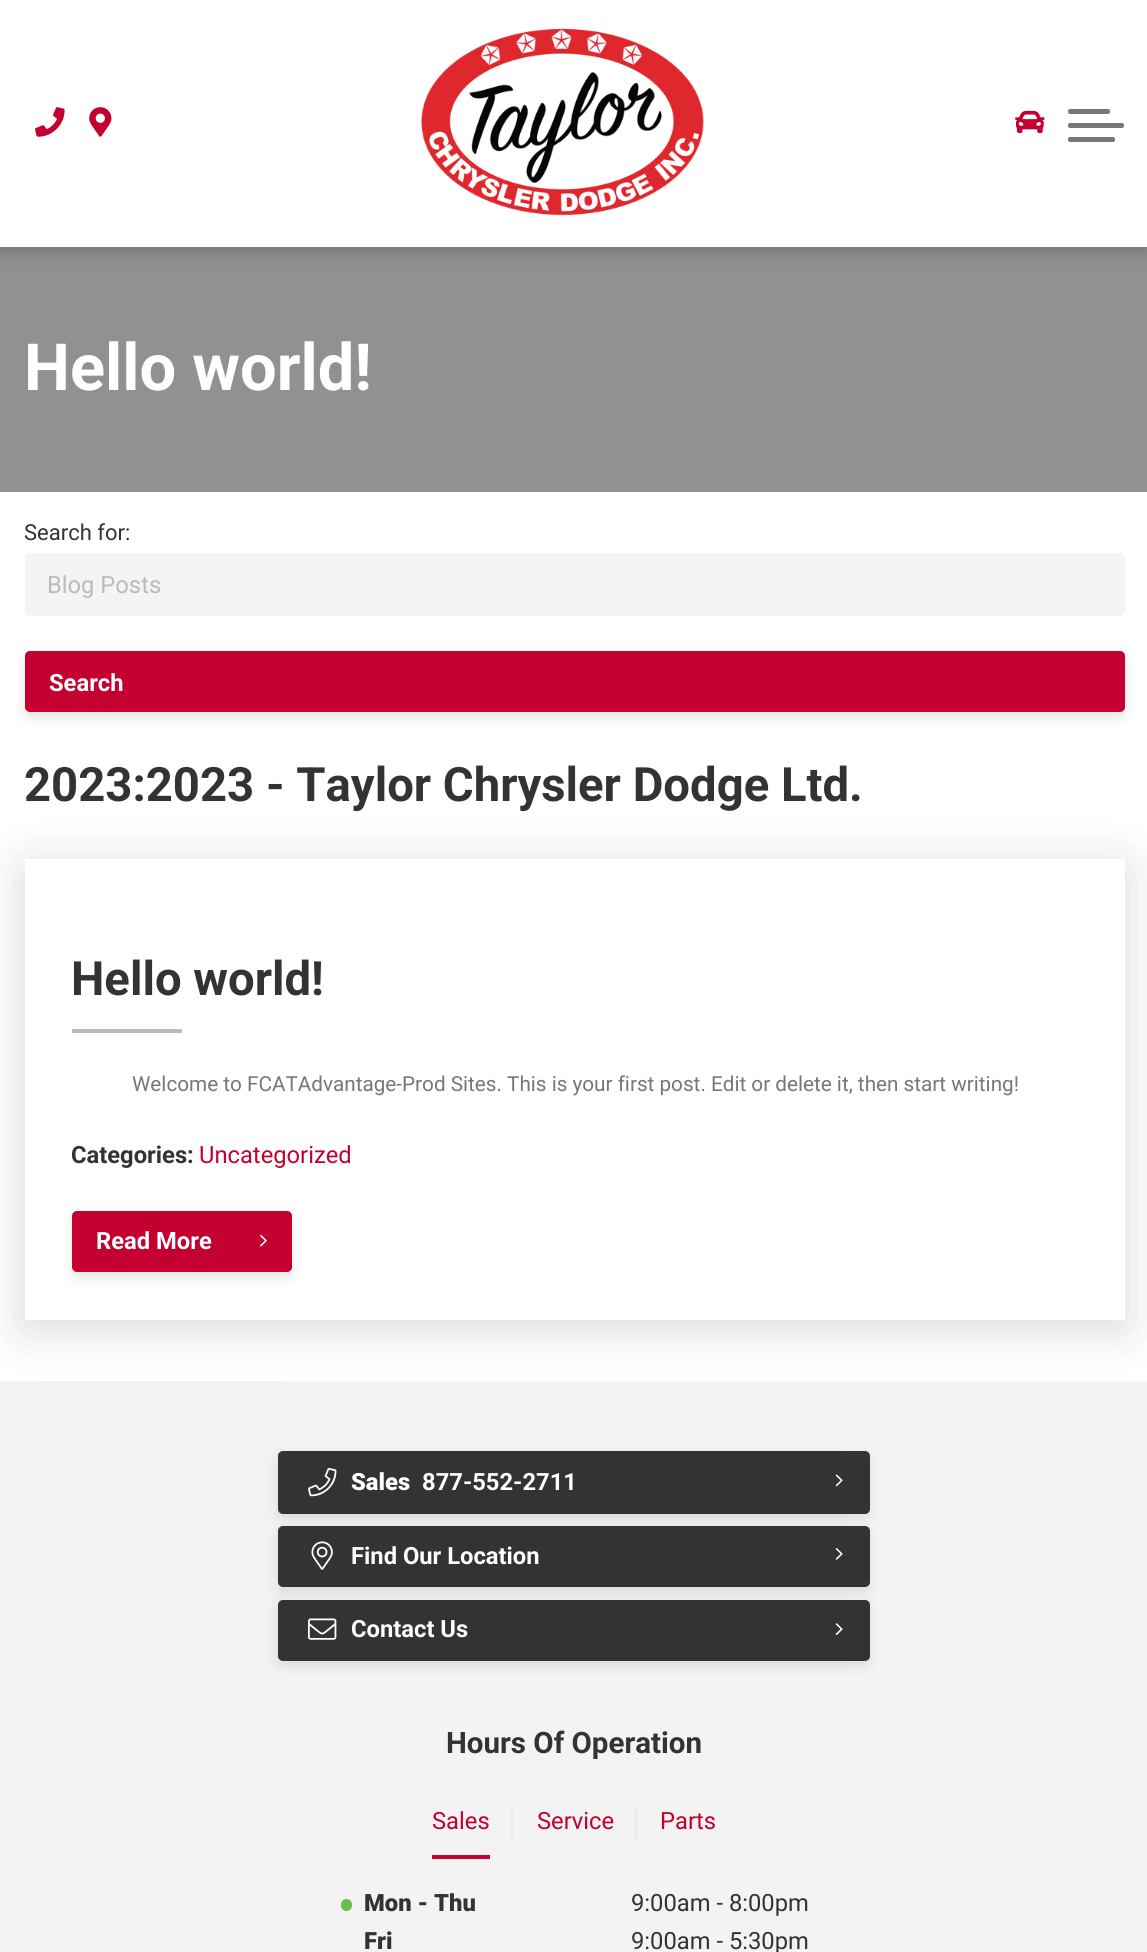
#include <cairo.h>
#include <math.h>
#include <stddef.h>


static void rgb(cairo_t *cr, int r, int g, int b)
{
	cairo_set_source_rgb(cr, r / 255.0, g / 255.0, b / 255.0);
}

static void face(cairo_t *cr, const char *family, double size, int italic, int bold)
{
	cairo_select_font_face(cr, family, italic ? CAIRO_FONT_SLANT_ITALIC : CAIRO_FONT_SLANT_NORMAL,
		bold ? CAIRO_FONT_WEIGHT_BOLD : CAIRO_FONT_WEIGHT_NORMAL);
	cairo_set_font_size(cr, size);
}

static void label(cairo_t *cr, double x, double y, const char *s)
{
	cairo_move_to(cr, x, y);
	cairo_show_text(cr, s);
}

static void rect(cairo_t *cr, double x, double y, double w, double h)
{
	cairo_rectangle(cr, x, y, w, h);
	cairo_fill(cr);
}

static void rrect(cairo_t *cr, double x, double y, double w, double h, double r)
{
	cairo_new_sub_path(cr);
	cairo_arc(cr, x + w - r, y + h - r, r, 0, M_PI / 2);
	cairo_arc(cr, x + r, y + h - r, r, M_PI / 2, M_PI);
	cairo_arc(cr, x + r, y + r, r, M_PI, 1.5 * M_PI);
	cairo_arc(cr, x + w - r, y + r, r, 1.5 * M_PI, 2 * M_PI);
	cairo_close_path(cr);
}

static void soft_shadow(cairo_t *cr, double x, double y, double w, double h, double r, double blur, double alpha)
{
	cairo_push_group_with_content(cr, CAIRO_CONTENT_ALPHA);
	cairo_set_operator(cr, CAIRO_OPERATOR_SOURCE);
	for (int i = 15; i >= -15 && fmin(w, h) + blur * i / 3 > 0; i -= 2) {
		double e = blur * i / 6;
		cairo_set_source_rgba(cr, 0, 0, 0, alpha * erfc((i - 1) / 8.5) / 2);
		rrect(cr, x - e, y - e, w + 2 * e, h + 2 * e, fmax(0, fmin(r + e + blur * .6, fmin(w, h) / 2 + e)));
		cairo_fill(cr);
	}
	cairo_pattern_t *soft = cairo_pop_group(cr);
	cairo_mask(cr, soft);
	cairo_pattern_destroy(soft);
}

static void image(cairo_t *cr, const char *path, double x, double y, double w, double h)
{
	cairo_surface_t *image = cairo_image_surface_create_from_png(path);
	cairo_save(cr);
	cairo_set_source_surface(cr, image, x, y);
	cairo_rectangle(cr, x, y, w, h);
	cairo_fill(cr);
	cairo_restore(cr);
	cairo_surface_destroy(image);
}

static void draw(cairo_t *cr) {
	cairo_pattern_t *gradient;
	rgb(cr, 255, 255, 255);
	cairo_paint(cr);
	rgb(cr, 145, 145, 145);
	rect(cr, 0, 247, 1147, 245);
	rgb(cr, 0, 0, 0);
	soft_shadow(cr, 0, 5, 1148, 247, 0, 9, 0.2);
	rgb(cr, 255, 255, 255);
	rect(cr, 0, 0, 1147, 247);
	image(cr, "image0.png", 35, 107, 30, 30);
	image(cr, "image1.png", 89, 107, 23, 30);
	image(cr, "image2.png", 421, 28, 283, 188);
	image(cr, "image3.png", 1015, 110, 30, 23);
	rgb(cr, 119, 119, 119);
	rrect(cr, 1068, 123, 56, 5, 2);
	cairo_fill(cr);
	rrect(cr, 1068, 109, 42, 5, 2);
	cairo_fill(cr);
	rrect(cr, 1068, 137, 47, 5, 2);
	cairo_fill(cr);
	face(cr, "Roboto", 65, 0, 1);
	rgb(cr, 255, 255, 255);
	label(cr, 24, 390, "Hello world!");
	face(cr, "Roboto", 22, 0, 0);
	rgb(cr, 51, 51, 51);
	label(cr, 24, 540, "Search for:");
	rgb(cr, 244, 244, 244);
	rrect(cr, 25, 553, 1100, 63, 5);
	cairo_fill(cr);
	face(cr, "Roboto", 23.75, 0, 0);
	rgb(cr, 187, 187, 187);
	label(cr, 47, 593, "Blog Posts");
	rgb(cr, 0, 0, 0);
	soft_shadow(cr, 25, 656, 1100, 62, 5, 6, 0.1);
	rgb(cr, 195, 0, 47);
	rrect(cr, 25, 651, 1100, 61, 5);
	cairo_fill(cr);
	face(cr, "Roboto", 23.75, 0, 1);
	rgb(cr, 255, 255, 255);
	label(cr, 49, 691, "Search");
	rgb(cr, 0, 0, 0);
	soft_shadow(cr, 25, 868, 1100, 460, 0, 26.5, 0.15);
	face(cr, "Roboto", 47.25, 0, 1);
	rgb(cr, 51, 51, 51);
	label(cr, 24, 801, "2023:2023 - Taylor Chrysler Dodge Ltd.");
	rgb(cr, 255, 255, 255);
	rect(cr, 25, 859, 1100, 461);
	rgb(cr, 51, 51, 51);
	label(cr, 71, 995, "Hello world!");
	rgb(cr, 187, 187, 187);
	rect(cr, 72, 1029, 110, 4);
	face(cr, "Roboto", 20.7, 0, 0);
	rgb(cr, 119, 119, 119);
	label(cr, 132, 1091, "Welcome to FCATAdvantage-Prod Sites. This is your first post. Edit or delete it, then start writing!");
	face(cr, "Roboto", 23.75, 0, 1);
	rgb(cr, 51, 51, 51);
	label(cr, 71, 1163, "Categories:");
	face(cr, "Roboto", 23.75, 0, 0);
	rgb(cr, 195, 0, 47);
	label(cr, 199, 1163, "Uncategorized");
	rgb(cr, 0, 0, 0);
	soft_shadow(cr, 72, 1216, 220, 62, 5, 6, 0.1);
	rgb(cr, 195, 0, 47);
	rrect(cr, 72, 1211, 220, 61, 5);
	cairo_fill(cr);
	face(cr, "Roboto", 23.75, 0, 1);
	rgb(cr, 255, 255, 255);
	label(cr, 96, 1249, "Read More");
	image(cr, "image4.png", 260, 1234, 7, 13);
	gradient = cairo_pattern_create_linear(0, 1733, 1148, 1733);
	cairo_pattern_add_color_stop_rgba(gradient, 0, 0.949, 0.949, 0.949, 1);
	cairo_pattern_add_color_stop_rgba(gradient, 1, 0.957, 0.957, 0.957, 1);
	cairo_set_source(cr, gradient);
	cairo_pattern_destroy(gradient);
	rect(cr, 0, 1381, 1147, 571);
	rgb(cr, 0, 0, 0);
	soft_shadow(cr, 278, 1456, 592, 63, 5, 6, 0.1);
	rgb(cr, 51, 51, 51);
	rrect(cr, 278, 1451, 592, 63, 5);
	cairo_fill(cr);
	image(cr, "image5.png", 308, 1468, 29, 29);
	face(cr, "Roboto Black", 23.75, 0, 0);
	rgb(cr, 255, 255, 255);
	label(cr, 351, 1490, "Sales");
	face(cr, "Roboto", 23.75, 0, 1);
	label(cr, 422, 1490, "877-552-2711");
	image(cr, "image6.png", 835, 1474, 8, 13);
	rgb(cr, 0, 0, 0);
	soft_shadow(cr, 278, 1531, 592, 62, 5, 6, 0.1);
	rgb(cr, 51, 51, 51);
	rrect(cr, 278, 1526, 592, 61, 5);
	cairo_fill(cr);
	image(cr, "image7.png", 311, 1541, 22, 29);
	rgb(cr, 255, 255, 255);
	label(cr, 351, 1564, "Find Our Location");
	image(cr, "image8.png", 835, 1548, 8, 12);
	rgb(cr, 0, 0, 0);
	soft_shadow(cr, 278, 1605, 592, 61, 5, 6, 0.1);
	rgb(cr, 51, 51, 51);
	rrect(cr, 278, 1600, 592, 61, 5);
	cairo_fill(cr);
	image(cr, "image9.png", 308, 1618, 29, 22);
	rgb(cr, 255, 255, 255);
	label(cr, 351, 1637, "Contact Us");
	image(cr, "image10.png", 835, 1623, 8, 12);
	face(cr, "Roboto", 29.5, 0, 1);
	rgb(cr, 51, 51, 51);
	label(cr, 446, 1753, "Hours Of Operation");
	rgb(cr, 195, 0, 47);
	rect(cr, 432, 1855, 58, 4);
	face(cr, "Roboto", 23.75, 0, 0);
	label(cr, 432, 1829, "Sales");
	rgb(cr, 236, 236, 236);
	rect(cr, 511, 1808, 2, 33);
	rgb(cr, 195, 0, 47);
	label(cr, 537, 1829, "Service");
	rgb(cr, 236, 236, 236);
	rect(cr, 635, 1808, 2, 33);
	rgb(cr, 195, 0, 47);
	label(cr, 660, 1829, "Parts");
	rgb(cr, 107, 191, 73);
	rrect(cr, 341, 1899, 11, 12, 5.5);
	cairo_fill(cr);
	face(cr, "Roboto Black", 23.75, 0, 0);
	rgb(cr, 51, 51, 51);
	label(cr, 364, 1911, "Mon - Thu");
	face(cr, "Roboto", 23.75, 0, 0);
	label(cr, 631, 1911, "9:00am - 8:00pm");
	face(cr, "Roboto Black", 23.75, 0, 0);
	label(cr, 364, 1949, "Fri");
	face(cr, "Roboto", 23.75, 0, 0);
	label(cr, 631, 1949, "9:00am - 5:30pm");
}

int main(void) {
	cairo_surface_t *surface = cairo_image_surface_create(CAIRO_FORMAT_RGB24, 1147, 1952);
	cairo_t *cr = cairo_create(surface);
	cairo_font_options_t *options = cairo_font_options_create();
	cairo_font_options_set_hint_metrics(options, CAIRO_HINT_METRICS_OFF);
	cairo_font_options_set_hint_style(options, CAIRO_HINT_STYLE_NONE);
	cairo_set_font_options(cr, options);
	cairo_set_miter_limit(cr, 4);
	draw(cr);
	cairo_surface_write_to_png(surface, "render.png");
	cairo_font_options_destroy(options);
	cairo_destroy(cr);
	cairo_surface_destroy(surface);
	return 0;
}
